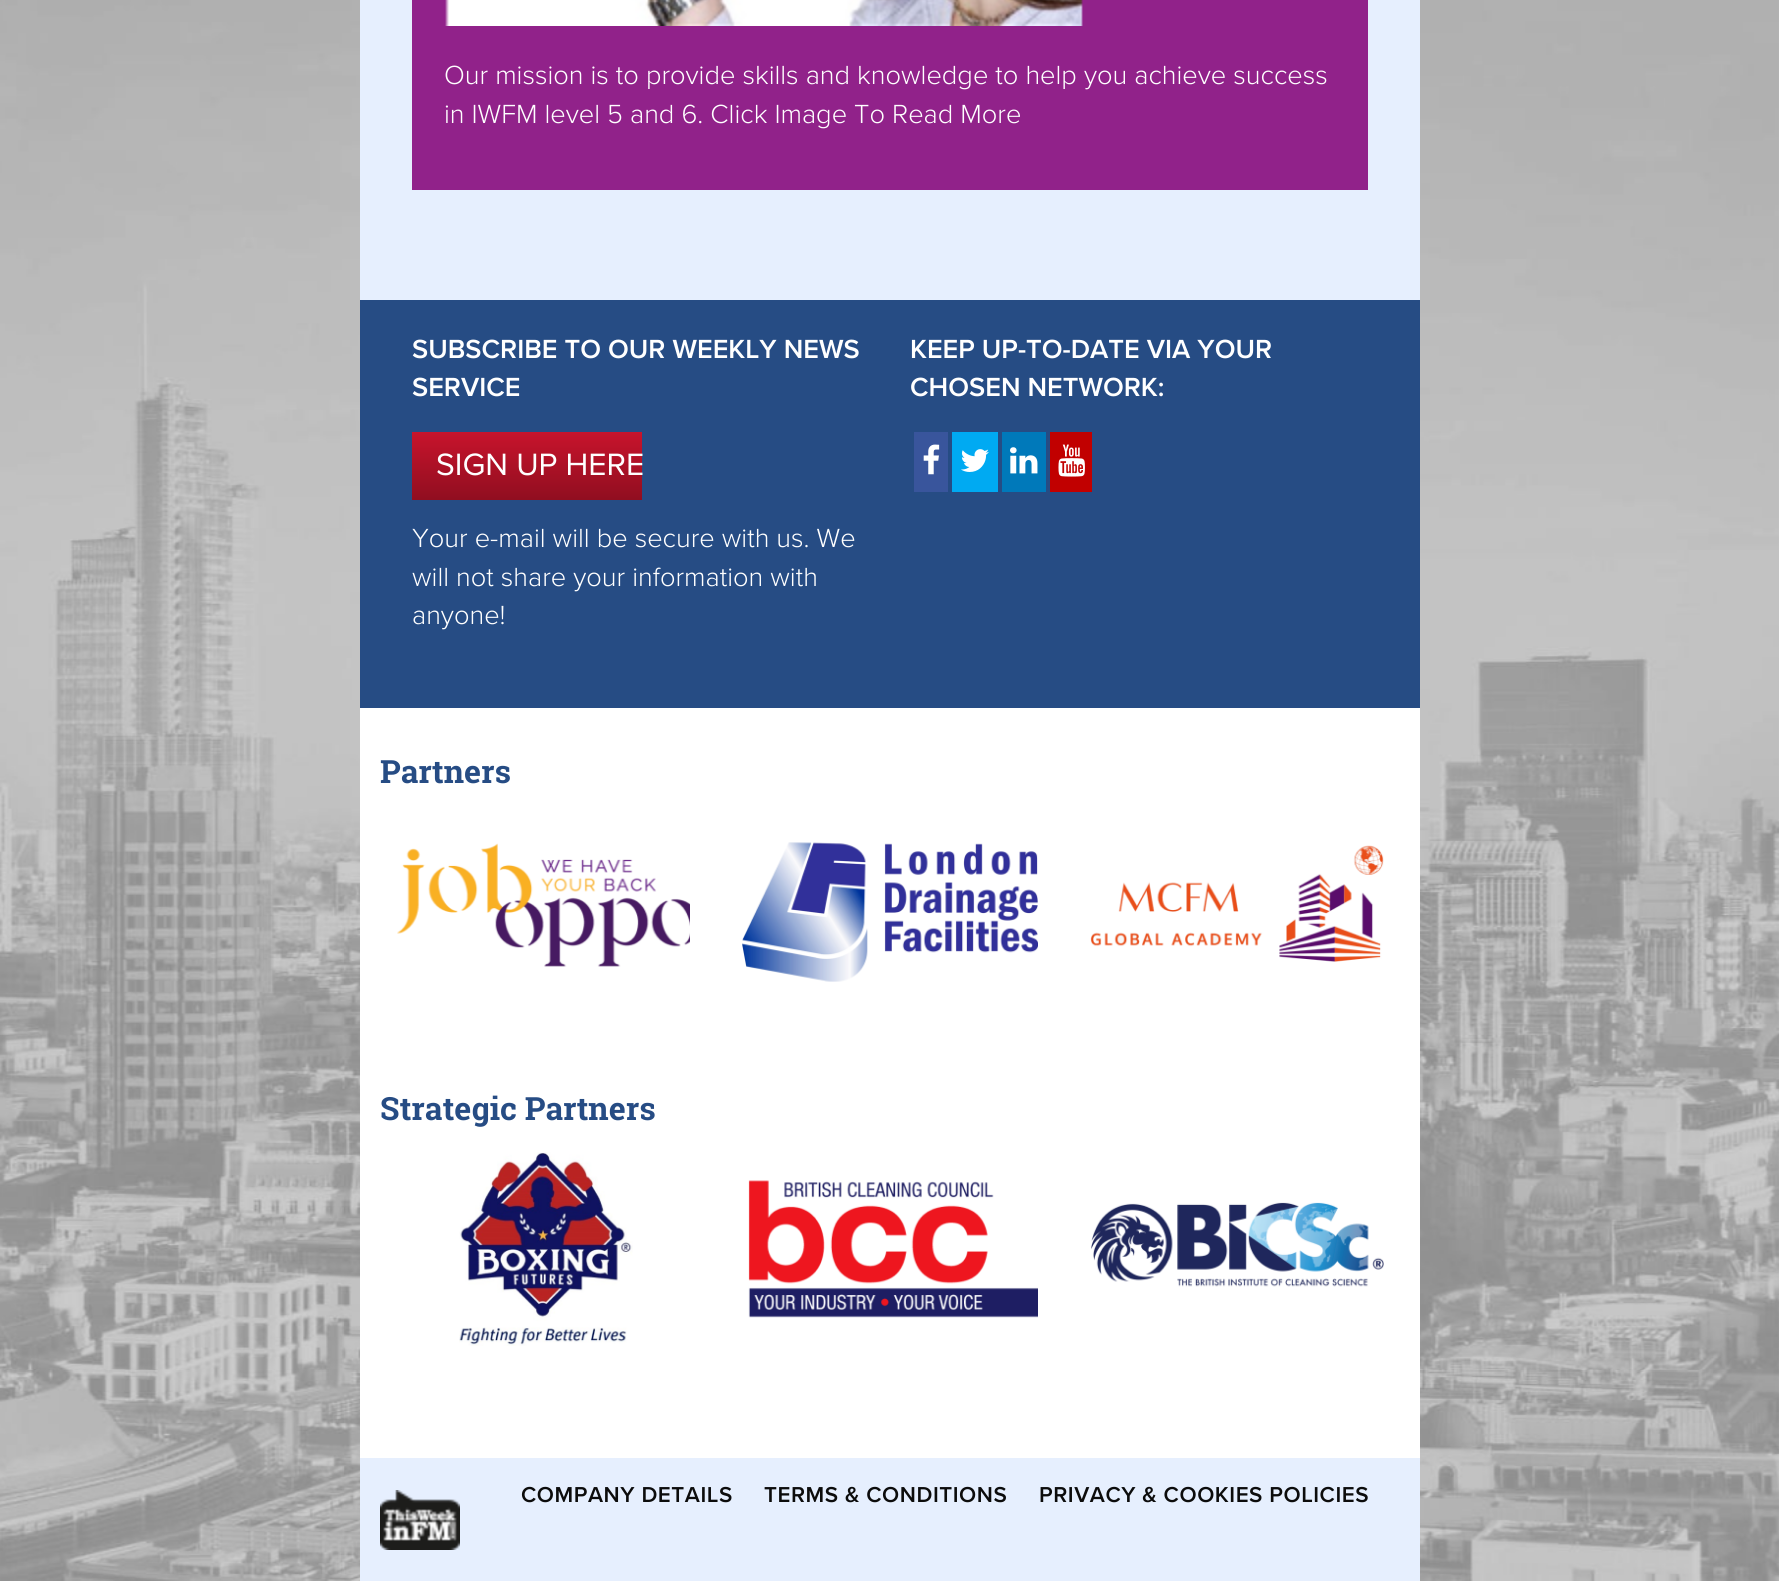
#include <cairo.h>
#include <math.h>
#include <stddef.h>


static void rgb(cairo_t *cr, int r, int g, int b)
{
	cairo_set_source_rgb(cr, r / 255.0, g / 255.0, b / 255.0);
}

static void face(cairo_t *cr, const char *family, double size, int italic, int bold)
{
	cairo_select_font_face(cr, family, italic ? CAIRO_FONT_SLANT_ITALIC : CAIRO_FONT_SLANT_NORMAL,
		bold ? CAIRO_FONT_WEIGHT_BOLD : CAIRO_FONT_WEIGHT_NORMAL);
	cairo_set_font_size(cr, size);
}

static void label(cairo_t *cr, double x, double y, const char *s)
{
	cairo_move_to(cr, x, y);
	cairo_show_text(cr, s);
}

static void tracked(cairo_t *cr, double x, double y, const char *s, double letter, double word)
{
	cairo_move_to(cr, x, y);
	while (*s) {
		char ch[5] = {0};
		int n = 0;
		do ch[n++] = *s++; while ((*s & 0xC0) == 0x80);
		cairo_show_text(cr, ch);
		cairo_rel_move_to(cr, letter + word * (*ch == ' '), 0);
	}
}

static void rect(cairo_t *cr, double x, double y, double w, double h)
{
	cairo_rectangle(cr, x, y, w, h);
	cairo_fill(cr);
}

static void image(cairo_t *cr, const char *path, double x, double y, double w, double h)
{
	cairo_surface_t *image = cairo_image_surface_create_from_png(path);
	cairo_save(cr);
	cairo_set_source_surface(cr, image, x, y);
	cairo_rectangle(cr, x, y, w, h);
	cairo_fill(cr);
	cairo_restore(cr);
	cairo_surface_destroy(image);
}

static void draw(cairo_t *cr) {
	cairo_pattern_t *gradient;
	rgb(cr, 255, 255, 255);
	cairo_paint(cr);
	image(cr, "image0.png", 0, 0, 1779, 1581);
	rgb(cr, 230, 239, 254);
	rect(cr, 360, 0, 1060, 300);
	rgb(cr, 145, 34, 138);
	rect(cr, 412, 0, 956, 190);
	image(cr, "image1.png", 445, 0, 638, 26);
	face(cr, "Proxima Nova Light", 27.2, 0, 0);
	rgb(cr, 255, 255, 255);
	label(cr, 444, 84, "Our mission is to provide skills and knowledge to help you achieve success");
	label(cr, 444, 123, "in IWFM level 5 and 6. Click Image To Read More");
	rgb(cr, 38, 76, 132);
	rect(cr, 360, 300, 1060, 408);
	face(cr, "Proxima Nova SemiBold", 27.2, 0, 0);
	rgb(cr, 255, 255, 255);
	label(cr, 412, 358, "SUBSCRIBE TO OUR WEEKLY NEWS");
	label(cr, 412, 396, "SERVICE");
	gradient = cairo_pattern_create_linear(527, 432, 527, 500);
	cairo_pattern_add_color_stop_rgba(gradient, 0, 0.784, 0.078, 0.173, 1);
	cairo_pattern_add_color_stop_rgba(gradient, 1, 0.565, 0.055, 0.125, 1);
	cairo_set_source(cr, gradient);
	cairo_pattern_destroy(gradient);
	rect(cr, 412, 432, 230, 68);
	face(cr, "Proxima Nova", 32, 0, 0);
	rgb(cr, 255, 255, 255);
	label(cr, 436, 475, "SIGN UP HERE");
	face(cr, "Proxima Nova Light", 27.2, 0, 0);
	label(cr, 412, 547, "Your e-mail will be secure with us. We");
	label(cr, 412, 586, "will not share your information with");
	label(cr, 412, 624, "anyone!");
	face(cr, "Proxima Nova SemiBold", 27.2, 0, 0);
	label(cr, 910, 358, "KEEP UP-TO-DATE VIA YOUR");
	label(cr, 910, 396, "CHOSEN NETWORK:");
	rgb(cr, 57, 85, 156);
	rect(cr, 914, 432, 34, 60);
	image(cr, "image2.png", 923, 444, 17, 31);
	rgb(cr, 0, 170, 242);
	rect(cr, 952, 432, 46, 60);
	image(cr, "image3.png", 961, 449, 28, 23);
	rgb(cr, 0, 121, 186);
	rect(cr, 1002, 432, 44, 60);
	image(cr, "image4.png", 1010, 447, 28, 27);
	rgb(cr, 193, 0, 0);
	rect(cr, 1050, 432, 42, 60);
	image(cr, "image5.png", 1058, 444, 27, 33);
	rgb(cr, 255, 255, 255);
	rect(cr, 360, 708, 1060, 750);
	face(cr, "Roboto Slab", 32, 0, 1);
	rgb(cr, 38, 76, 132);
	label(cr, 380, 783, "Partners");
	image(cr, "image6.png", 397, 843, 293, 124);
	image(cr, "image7.png", 742, 842, 296, 140);
	image(cr, "image8.png", 1090, 845, 294, 117);
	label(cr, 380, 1120, "Strategic Partners");
	image(cr, "image9.png", 459, 1152, 174, 194);
	image(cr, "image10.png", 748, 1180, 290, 138);
	image(cr, "image11.png", 1091, 1202, 293, 85);
	rgb(cr, 230, 239, 254);
	rect(cr, 360, 1458, 1060, 123);
	image(cr, "image12.png", 380, 1490, 80, 60);
	face(cr, "Proxima Nova SemiBold", 22.4, 0, 0);
	rgb(cr, 12, 12, 12);
	tracked(cr, 521, 1502, "COMPANY DETAILS", 0.55, 0);
	tracked(cr, 764, 1502, "TERMS & CONDITIONS", 0.55, 0);
	tracked(cr, 1039, 1502, "PRIVACY & COOKIES POLICIES", 0.55, 0);
}

int main(void) {
	cairo_surface_t *surface = cairo_image_surface_create(CAIRO_FORMAT_RGB24, 1779, 1581);
	cairo_t *cr = cairo_create(surface);
	cairo_font_options_t *options = cairo_font_options_create();
	cairo_font_options_set_hint_metrics(options, CAIRO_HINT_METRICS_OFF);
	cairo_font_options_set_hint_style(options, CAIRO_HINT_STYLE_NONE);
	cairo_set_font_options(cr, options);
	cairo_set_miter_limit(cr, 4);
	draw(cr);
	cairo_surface_write_to_png(surface, "render.png");
	cairo_font_options_destroy(options);
	cairo_destroy(cr);
	cairo_surface_destroy(surface);
	return 0;
}
